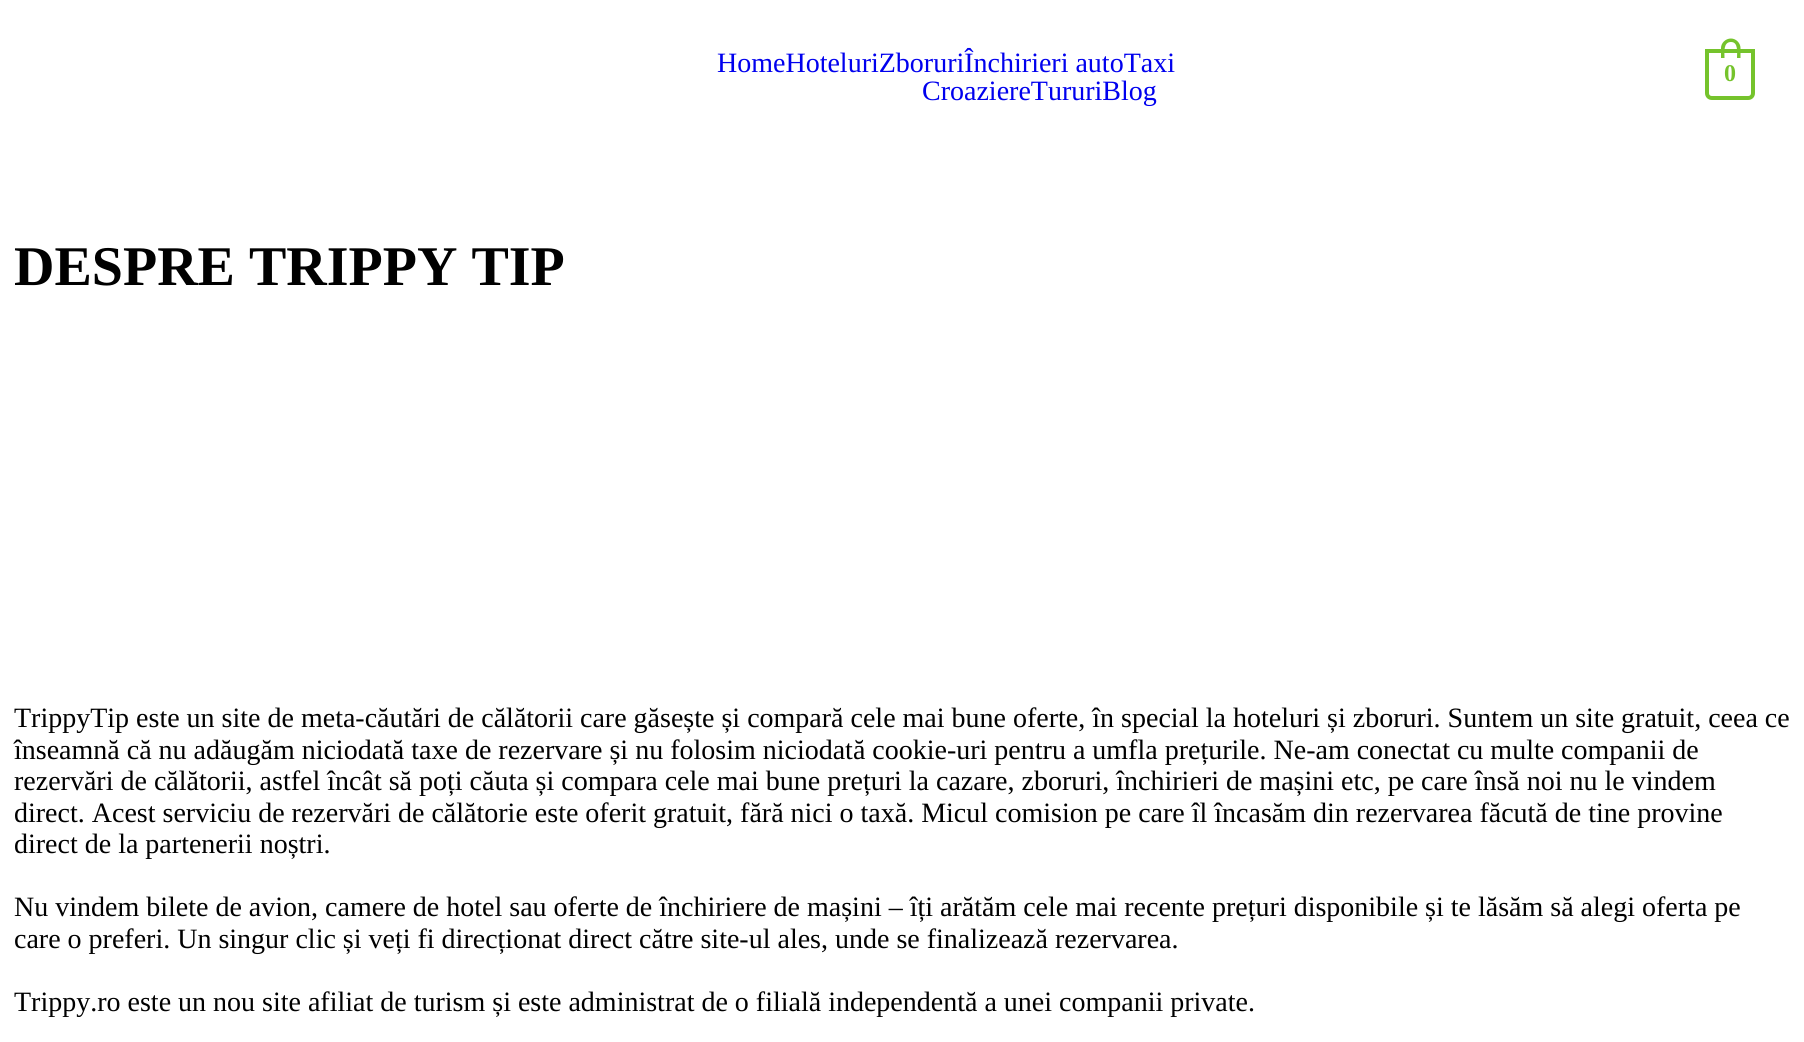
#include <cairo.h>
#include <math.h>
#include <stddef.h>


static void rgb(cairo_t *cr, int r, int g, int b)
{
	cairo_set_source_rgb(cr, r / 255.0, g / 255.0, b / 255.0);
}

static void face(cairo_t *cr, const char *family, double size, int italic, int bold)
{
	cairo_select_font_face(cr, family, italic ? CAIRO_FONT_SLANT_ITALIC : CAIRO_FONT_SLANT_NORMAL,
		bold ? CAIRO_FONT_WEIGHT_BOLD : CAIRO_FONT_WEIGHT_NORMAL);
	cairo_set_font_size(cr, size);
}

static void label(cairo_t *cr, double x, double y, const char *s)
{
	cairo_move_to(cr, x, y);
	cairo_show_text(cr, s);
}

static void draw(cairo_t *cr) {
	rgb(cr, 255, 255, 255);
	cairo_paint(cr);
	face(cr, "Liberation Serif", 28, 0, 0);
	rgb(cr, 0, 0, 238);
	label(cr, 717, 72, "HomeHoteluriZboruriÎnchirieri autoTaxi");
	label(cr, 922, 100, "CroaziereTururiBlog");
	cairo_new_path(cr);
	cairo_move_to(cr, 1707, 51);
	cairo_line_to(cr, 1753, 51);
	cairo_line_to(cr, 1753, 93);
	cairo_curve_to(cr, 1753, 96, 1751, 98, 1748, 98);
	cairo_line_to(cr, 1712, 98);
	cairo_curve_to(cr, 1709, 98, 1707, 96, 1707, 93);
	cairo_close_path(cr);
	rgb(cr, 117, 195, 44);
	cairo_set_line_width(cr, 4);
	cairo_stroke(cr);
	cairo_set_fill_rule(cr, CAIRO_FILL_RULE_EVEN_ODD);
	cairo_new_path(cr);
	cairo_move_to(cr, 1731, 38.5);
	cairo_curve_to(cr, 1736, 38.5, 1740.5, 43, 1740.5, 48);
	cairo_line_to(cr, 1740.5, 58);
	cairo_line_to(cr, 1721, 58);
	cairo_line_to(cr, 1721, 48);
	cairo_curve_to(cr, 1721, 43, 1725.5, 38.5, 1731, 38.5);
	cairo_close_path(cr);
	cairo_move_to(cr, 1731, 42);
	cairo_curve_to(cr, 1738.5, 42, 1737, 52.5, 1737, 58);
	cairo_line_to(cr, 1724.5, 58);
	cairo_curve_to(cr, 1724.5, 52.5, 1723, 42, 1731, 42);
	cairo_close_path(cr);
	cairo_fill(cr);
	face(cr, "Liberation Serif", 24, 0, 1);
	label(cr, 1724, 81, "0");
	face(cr, "Liberation Serif", 56, 0, 1);
	rgb(cr, 0, 0, 0);
	label(cr, 14, 285, "DESPRE TRIPPY TIP");
	face(cr, "Liberation Serif", 28, 0, 0);
	label(cr, 14, 727, "TrippyTip este un site de meta-căutări de călătorii care găsește și compară cele mai bune oferte, în special la hoteluri și zboruri. Suntem un site gratuit, ceea ce");
	label(cr, 14, 759, "înseamnă că nu adăugăm niciodată taxe de rezervare și nu folosim niciodată cookie-uri pentru a umfla prețurile. Ne-am conectat cu multe companii de");
	label(cr, 14, 790, "rezervări de călătorii, astfel încât să poți căuta și compara cele mai bune prețuri la cazare, zboruri, închirieri de mașini etc, pe care însă noi nu le vindem");
	label(cr, 14, 822, "direct. Acest serviciu de rezervări de călătorie este oferit gratuit, fără nici o taxă. Micul comision pe care îl încasăm din rezervarea făcută de tine provine");
	label(cr, 14, 853, "direct de la partenerii noștri.");
	label(cr, 14, 916, "Nu vindem bilete de avion, camere de hotel sau oferte de închiriere de mașini – îți arătăm cele mai recente prețuri disponibile și te lăsăm să alegi oferta pe");
	label(cr, 14, 948, "care o preferi. Un singur clic și veți fi direcționat direct către site-ul ales, unde se finalizează rezervarea.");
	label(cr, 14, 1011, "Trippy.ro este un nou site afiliat de turism și este administrat de o filială independentă a unei companii private.");
}

int main(void) {
	cairo_surface_t *surface = cairo_image_surface_create(CAIRO_FORMAT_RGB24, 1804, 1042);
	cairo_t *cr = cairo_create(surface);
	cairo_font_options_t *options = cairo_font_options_create();
	cairo_font_options_set_hint_metrics(options, CAIRO_HINT_METRICS_OFF);
	cairo_font_options_set_hint_style(options, CAIRO_HINT_STYLE_NONE);
	cairo_set_font_options(cr, options);
	cairo_set_miter_limit(cr, 4);
	draw(cr);
	cairo_surface_write_to_png(surface, "render.png");
	cairo_font_options_destroy(options);
	cairo_destroy(cr);
	cairo_surface_destroy(surface);
	return 0;
}
